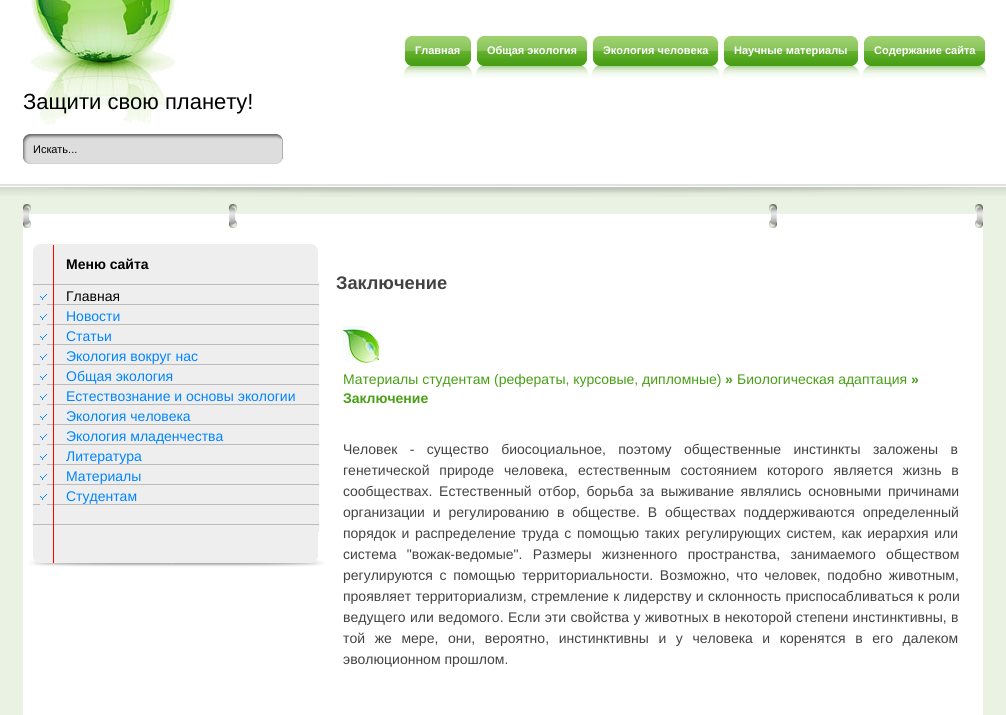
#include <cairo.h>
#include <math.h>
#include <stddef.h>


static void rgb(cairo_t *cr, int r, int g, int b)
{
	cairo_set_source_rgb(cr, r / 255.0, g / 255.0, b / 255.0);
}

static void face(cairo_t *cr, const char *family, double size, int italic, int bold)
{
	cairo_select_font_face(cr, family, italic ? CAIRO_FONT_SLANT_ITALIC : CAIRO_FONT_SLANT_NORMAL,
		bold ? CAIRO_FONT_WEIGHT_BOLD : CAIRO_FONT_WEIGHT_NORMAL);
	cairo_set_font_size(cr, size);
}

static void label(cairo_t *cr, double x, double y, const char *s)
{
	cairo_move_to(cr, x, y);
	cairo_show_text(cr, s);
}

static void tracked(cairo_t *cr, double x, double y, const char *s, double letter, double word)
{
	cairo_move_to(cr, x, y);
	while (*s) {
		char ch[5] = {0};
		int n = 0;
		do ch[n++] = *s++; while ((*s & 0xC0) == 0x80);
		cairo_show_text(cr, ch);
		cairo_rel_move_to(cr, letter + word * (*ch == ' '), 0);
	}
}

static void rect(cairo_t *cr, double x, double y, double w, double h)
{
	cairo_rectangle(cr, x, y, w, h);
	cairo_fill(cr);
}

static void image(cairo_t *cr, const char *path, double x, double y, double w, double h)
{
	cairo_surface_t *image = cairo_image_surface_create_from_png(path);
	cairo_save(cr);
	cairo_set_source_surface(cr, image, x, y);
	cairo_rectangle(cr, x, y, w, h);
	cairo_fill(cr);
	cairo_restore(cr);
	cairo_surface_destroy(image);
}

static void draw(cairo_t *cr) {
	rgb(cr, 233, 242, 227);
	cairo_paint(cr);
	image(cr, "image0.png", 0, 0, 1006, 196);
	image(cr, "image1.png", 30, 0, 947, 197);
	image(cr, "image2.png", 403, 36, 70, 42);
	image(cr, "image3.png", 403, 36, 8, 39);
	face(cr, "Liberation Sans", 11, 0, 1);
	rgb(cr, 255, 255, 255);
	label(cr, 415, 54, "Главная");
	image(cr, "image4.png", 475, 36, 114, 42);
	image(cr, "image3.png", 475, 36, 8, 39);
	label(cr, 487, 54, "Общая экология");
	image(cr, "image5.png", 591, 36, 129, 42);
	image(cr, "image3.png", 591, 36, 8, 39);
	label(cr, 603, 54, "Экология человека");
	image(cr, "image6.png", 722, 36, 138, 42);
	image(cr, "image3.png", 722, 36, 8, 39);
	label(cr, 734, 54, "Научные материалы");
	image(cr, "image7.png", 862, 36, 125, 42);
	image(cr, "image3.png", 862, 36, 8, 39);
	label(cr, 874, 54, "Содержание сайта");
	face(cr, "Liberation Sans", 22, 0, 0);
	rgb(cr, 0, 0, 0);
	label(cr, 23, 109, "Защити свою планету!");
	image(cr, "image8.png", 23, 134, 260, 30);
	face(cr, "Liberation Sans", 11, 0, 0);
	label(cr, 33, 153, "Искать...");
	rgb(cr, 255, 255, 255);
	rect(cr, 23, 228, 960, 487);
	image(cr, "image9.png", 23, 204, 960, 24);
	image(cr, "image10.png", 33, 282, 286, 250);
	image(cr, "image11.png", 29, 532, 295, 36);
	image(cr, "image12.png", 33, 244, 286, 38);
	face(cr, "Liberation Sans", 14, 0, 1);
	rgb(cr, 0, 0, 0);
	label(cr, 66, 269, "Меню сайта");
	image(cr, "image13.png", 40, 294, 7, 11);
	face(cr, "Liberation Sans", 14, 0, 0);
	label(cr, 66, 301, "Главная");
	image(cr, "image13.png", 40, 314, 7, 11);
	rgb(cr, 0, 132, 255);
	label(cr, 66, 321, "Новости");
	image(cr, "image13.png", 40, 334, 7, 11);
	label(cr, 66, 341, "Статьи");
	image(cr, "image13.png", 40, 354, 7, 11);
	label(cr, 66, 361, "Экология вокруг нас");
	image(cr, "image13.png", 40, 374, 7, 11);
	label(cr, 66, 381, "Общая экология");
	image(cr, "image13.png", 40, 394, 7, 11);
	label(cr, 66, 401, "Естествознание и основы экологии");
	image(cr, "image13.png", 40, 414, 7, 11);
	label(cr, 66, 421, "Экология человека");
	image(cr, "image13.png", 40, 434, 7, 11);
	label(cr, 66, 441, "Экология младенчества");
	image(cr, "image13.png", 40, 454, 7, 11);
	label(cr, 66, 461, "Литература");
	image(cr, "image13.png", 40, 474, 7, 11);
	label(cr, 66, 481, "Материалы");
	image(cr, "image13.png", 40, 494, 7, 11);
	label(cr, 66, 501, "Студентам");
	face(cr, "Liberation Sans", 18.25, 0, 1);
	rgb(cr, 66, 66, 66);
	label(cr, 336, 289, "Заключение");
	image(cr, "image14.png", 343, 326, 36, 37);
	face(cr, "Liberation Sans", 14, 0, 0);
	rgb(cr, 72, 159, 20);
	label(cr, 343, 384, "Материалы студентам (рефераты, курсовые, дипломные)");
	face(cr, "Liberation Sans", 14, 0, 1);
	label(cr, 725, 384, "»");
	face(cr, "Liberation Sans", 14, 0, 0);
	label(cr, 737, 384, "Биологическая адаптация");
	face(cr, "Liberation Sans", 14, 0, 1);
	label(cr, 911, 384, "»");
	label(cr, 343, 403, "Заключение");
	face(cr, "Liberation Sans", 14, 0, 0);
	rgb(cr, 66, 66, 66);
	tracked(cr, 343, 454, "Человек - существо биосоциальное, поэтому общественные инстинкты заложены в", 0, 8.5);
	tracked(cr, 343, 475, "генетической природе человека, естественным состоянием которого является жизнь в", 0, 6);
	tracked(cr, 343, 496, "сообществах. Естественный отбор, борьба за выживание являлись основными причинами", 0, 2.75);
	tracked(cr, 343, 517, "организации и регулированию в обществе. В обществах поддерживаются определенный", 0, 4);
	tracked(cr, 343, 538, "порядок и распределение труда с помощью таких регулирующих систем, как иерархия или", 0, 1.75);
	tracked(cr, 343, 559, "система \"вожак-ведомые\". Размеры жизненного пространства, занимаемого обществом", 0, 6.5);
	tracked(cr, 343, 580, "регулируются с помощью территориальности. Возможно, что человек, подобно животным,", 0, 2.75);
	tracked(cr, 343, 601, "проявляет территориализм, стремление к лидерству и склонность приспосабливаться к роли", 0, 0.5);
	tracked(cr, 343, 622, "ведущего или ведомого. Если эти свойства у животных в некоторой степени инстинктивны, в", 0, 0.5);
	tracked(cr, 343, 643, "той же мере, они, вероятно, инстинктивны и у человека и коренятся в его далеком", 0, 5.75);
	label(cr, 343, 664, "эволюционном прошлом.");
}

int main(void) {
	cairo_surface_t *surface = cairo_image_surface_create(CAIRO_FORMAT_RGB24, 1006, 715);
	cairo_t *cr = cairo_create(surface);
	cairo_font_options_t *options = cairo_font_options_create();
	cairo_font_options_set_hint_metrics(options, CAIRO_HINT_METRICS_OFF);
	cairo_font_options_set_hint_style(options, CAIRO_HINT_STYLE_NONE);
	cairo_set_font_options(cr, options);
	cairo_set_miter_limit(cr, 4);
	draw(cr);
	cairo_surface_write_to_png(surface, "render.png");
	cairo_font_options_destroy(options);
	cairo_destroy(cr);
	cairo_surface_destroy(surface);
	return 0;
}
